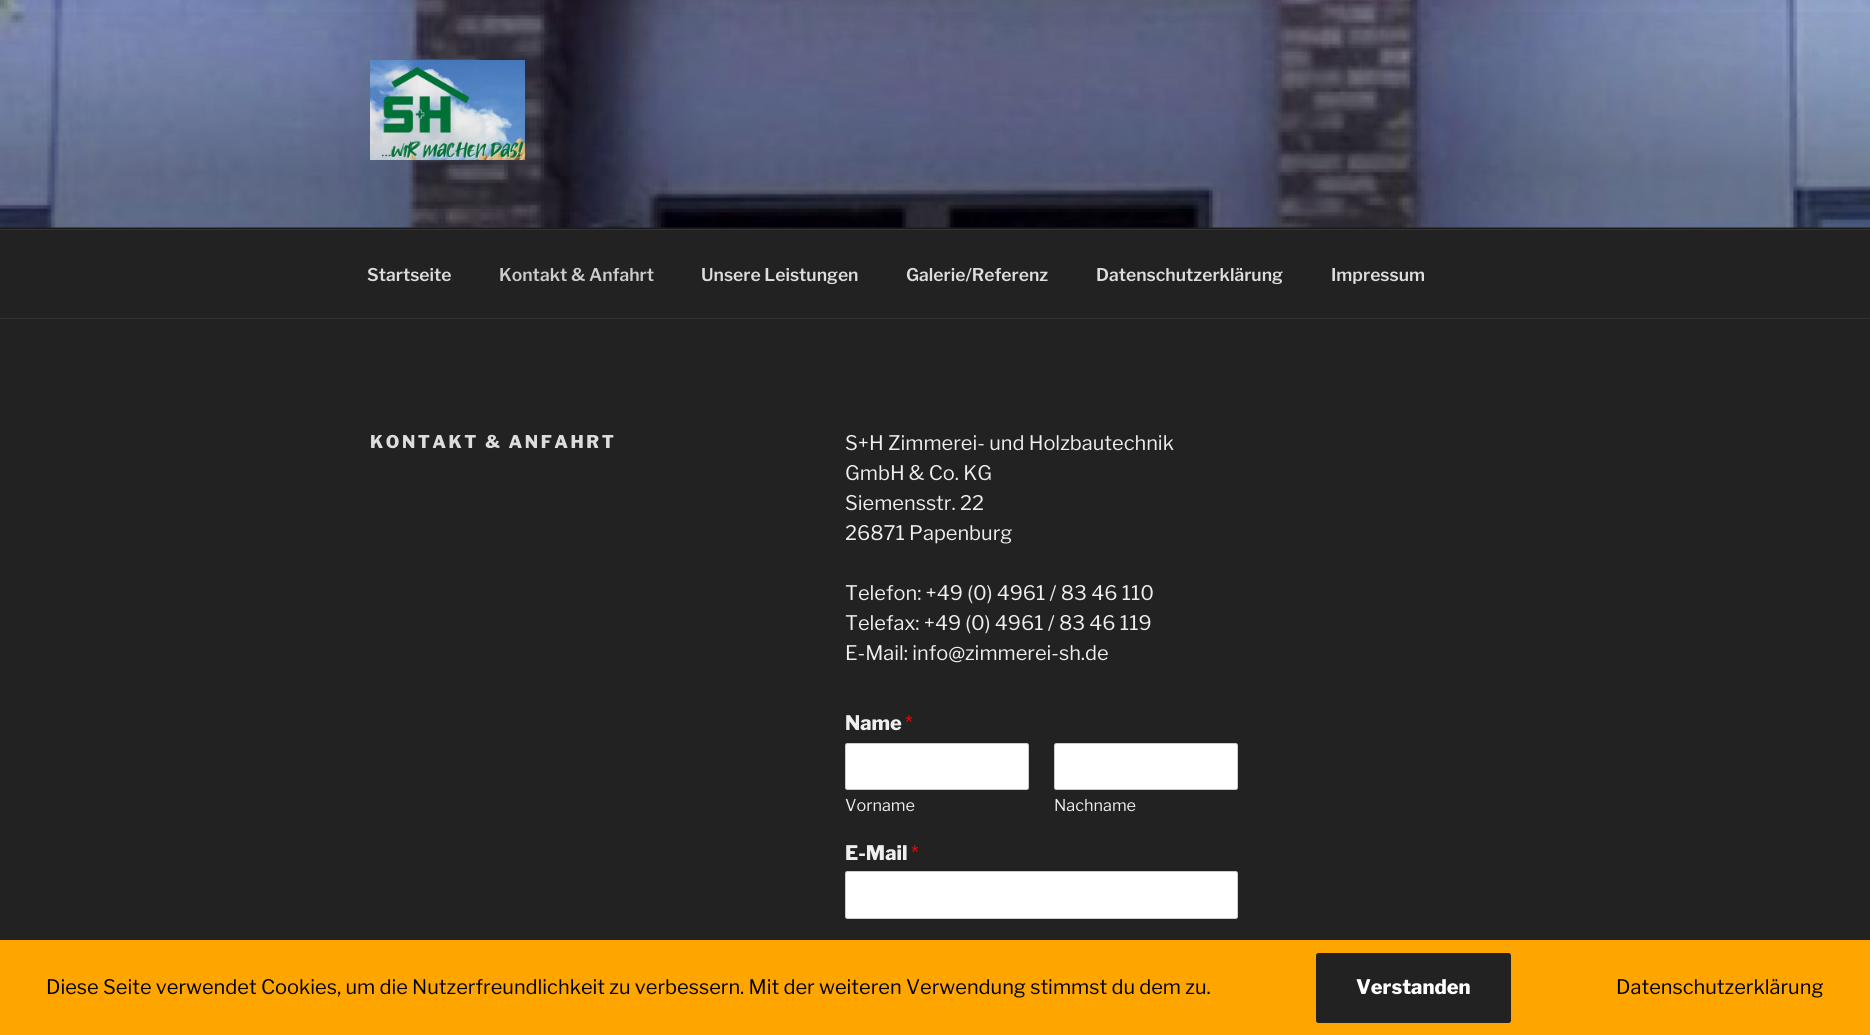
#include <cairo.h>
#include <math.h>
#include <stddef.h>


static void rgb(cairo_t *cr, int r, int g, int b)
{
	cairo_set_source_rgb(cr, r / 255.0, g / 255.0, b / 255.0);
}

static void face(cairo_t *cr, const char *family, double size, int italic, int bold)
{
	cairo_select_font_face(cr, family, italic ? CAIRO_FONT_SLANT_ITALIC : CAIRO_FONT_SLANT_NORMAL,
		bold ? CAIRO_FONT_WEIGHT_BOLD : CAIRO_FONT_WEIGHT_NORMAL);
	cairo_set_font_size(cr, size);
}

static void label(cairo_t *cr, double x, double y, const char *s)
{
	cairo_move_to(cr, x, y);
	cairo_show_text(cr, s);
}

static void tracked(cairo_t *cr, double x, double y, const char *s, double letter, double word)
{
	cairo_move_to(cr, x, y);
	while (*s) {
		char ch[5] = {0};
		int n = 0;
		do ch[n++] = *s++; while ((*s & 0xC0) == 0x80);
		cairo_show_text(cr, ch);
		cairo_rel_move_to(cr, letter + word * (*ch == ' '), 0);
	}
}

static void rect(cairo_t *cr, double x, double y, double w, double h)
{
	cairo_rectangle(cr, x, y, w, h);
	cairo_fill(cr);
}

static void rrect(cairo_t *cr, double x, double y, double w, double h, double r)
{
	cairo_new_sub_path(cr);
	cairo_arc(cr, x + w - r, y + h - r, r, 0, M_PI / 2);
	cairo_arc(cr, x + r, y + h - r, r, M_PI / 2, M_PI);
	cairo_arc(cr, x + r, y + r, r, M_PI, 1.5 * M_PI);
	cairo_arc(cr, x + w - r, y + r, r, 1.5 * M_PI, 2 * M_PI);
	cairo_close_path(cr);
}

static void image(cairo_t *cr, const char *path, double x, double y, double w, double h)
{
	cairo_surface_t *image = cairo_image_surface_create_from_png(path);
	cairo_save(cr);
	cairo_set_source_surface(cr, image, x, y);
	cairo_rectangle(cr, x, y, w, h);
	cairo_fill(cr);
	cairo_restore(cr);
	cairo_surface_destroy(image);
}

static void draw(cairo_t *cr) {
	cairo_pattern_t *gradient;
	rgb(cr, 34, 34, 34);
	cairo_paint(cr);
	rgb(cr, 38, 38, 38);
	rect(cr, 0, 227, 1870, 2);
	image(cr, "image0.png", 0, 0, 1870, 228);
	gradient = cairo_pattern_create_linear(935, 0, 935, 229);
	cairo_pattern_add_color_stop_rgba(gradient, 0, 0, 0, 0, 0);
	cairo_pattern_add_color_stop_rgba(gradient, 0.75, 0, 0, 0, 0.3);
	cairo_pattern_add_color_stop_rgba(gradient, 1, 0, 0, 0, 0.3);
	cairo_set_source(cr, gradient);
	cairo_pattern_destroy(gradient);
	rect(cr, 0, 12, 1870, 217);
	image(cr, "image1.png", 370, 60, 155, 100);
	rgb(cr, 51, 51, 51);
	rect(cr, 0, 229, 1870, 1);
	rect(cr, 0, 318, 1870, 1);
	face(cr, "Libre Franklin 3 Thin", 17.5, 0, 0);
	rgb(cr, 221, 221, 221);
	label(cr, 367, 281, "Startseite");
	rgb(cr, 204, 204, 204);
	label(cr, 499, 281, "Kontakt & Anfahrt");
	rgb(cr, 221, 221, 221);
	label(cr, 701, 281, "Unsere Leistungen");
	label(cr, 906, 281, "Galerie/Referenz");
	label(cr, 1096, 281, "Datenschutzerklärung");
	label(cr, 1331, 281, "Impressum");
	face(cr, "Libre Franklin Thin", 17.5, 0, 0);
	tracked(cr, 370, 448, "KONTAKT & ANFAHRT", 2.5, 0);
	face(cr, "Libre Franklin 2 Thin", 20, 0, 0);
	rgb(cr, 238, 238, 238);
	label(cr, 845, 450, "S+H Zimmerei- und Holzbautechnik");
	label(cr, 845, 480, "GmbH & Co. KG");
	label(cr, 845, 510, "Siemensstr. 22");
	label(cr, 845, 540, "26871 Papenburg");
	label(cr, 845, 600, "Telefon: +49 (0) 4961 / 83 46 110");
	label(cr, 845, 630, "Telefax: +49 (0) 4961 / 83 46 119");
	label(cr, 845, 660, "E-Mail: info@zimmerei-sh.de");
	face(cr, "Libre Franklin Thin", 20, 0, 0);
	label(cr, 845, 730, "Name");
	face(cr, "Libre Franklin 2 Thin", 20, 0, 0);
	rgb(cr, 255, 0, 0);
	label(cr, 905, 730, "*");
	rgb(cr, 255, 255, 255);
	rrect(cr, 845.5, 743.5, 183, 46, 2);
	cairo_fill_preserve(cr);
	rgb(cr, 204, 204, 204);
	cairo_set_line_width(cr, 1);
	cairo_stroke(cr);
	face(cr, "Libre Franklin 2 Thin", 16.25, 0, 0);
	rgb(cr, 238, 238, 238);
	label(cr, 845, 811, "Vorname");
	rgb(cr, 255, 255, 255);
	rrect(cr, 1054.5, 743.5, 183, 46, 2);
	cairo_fill_preserve(cr);
	rgb(cr, 204, 204, 204);
	cairo_stroke(cr);
	rgb(cr, 238, 238, 238);
	label(cr, 1054, 811, "Nachname");
	face(cr, "Libre Franklin Thin", 20, 0, 0);
	label(cr, 845, 860, "E-Mail");
	face(cr, "Libre Franklin 2 Thin", 20, 0, 0);
	rgb(cr, 255, 0, 0);
	label(cr, 911, 860, "*");
	rgb(cr, 255, 255, 255);
	rrect(cr, 845.5, 871.5, 392, 47, 2);
	cairo_fill_preserve(cr);
	rgb(cr, 204, 204, 204);
	cairo_stroke(cr);
	rgb(cr, 255, 165, 0);
	rect(cr, 0, 940, 1870, 95);
	rgb(cr, 0, 0, 0);
	label(cr, 46, 994, "Diese Seite verwendet Cookies, um die Nutzerfreundlichkeit zu verbessern. Mit der weiteren Verwendung stimmst du dem zu.");
	rgb(cr, 34, 34, 34);
	rrect(cr, 1316, 953, 195, 70, 2.5);
	cairo_fill(cr);
	face(cr, "Libre Franklin Thin", 20, 0, 0);
	rgb(cr, 255, 255, 255);
	label(cr, 1356, 994, "Verstanden");
	face(cr, "Libre Franklin 2 Thin", 20, 0, 0);
	rgb(cr, 0, 0, 0);
	label(cr, 1616, 994, "Datenschutzerklärung");
}

int main(void) {
	cairo_surface_t *surface = cairo_image_surface_create(CAIRO_FORMAT_RGB24, 1870, 1035);
	cairo_t *cr = cairo_create(surface);
	cairo_font_options_t *options = cairo_font_options_create();
	cairo_font_options_set_hint_metrics(options, CAIRO_HINT_METRICS_OFF);
	cairo_font_options_set_hint_style(options, CAIRO_HINT_STYLE_NONE);
	cairo_set_font_options(cr, options);
	cairo_set_miter_limit(cr, 4);
	draw(cr);
	cairo_surface_write_to_png(surface, "render.png");
	cairo_font_options_destroy(options);
	cairo_destroy(cr);
	cairo_surface_destroy(surface);
	return 0;
}
